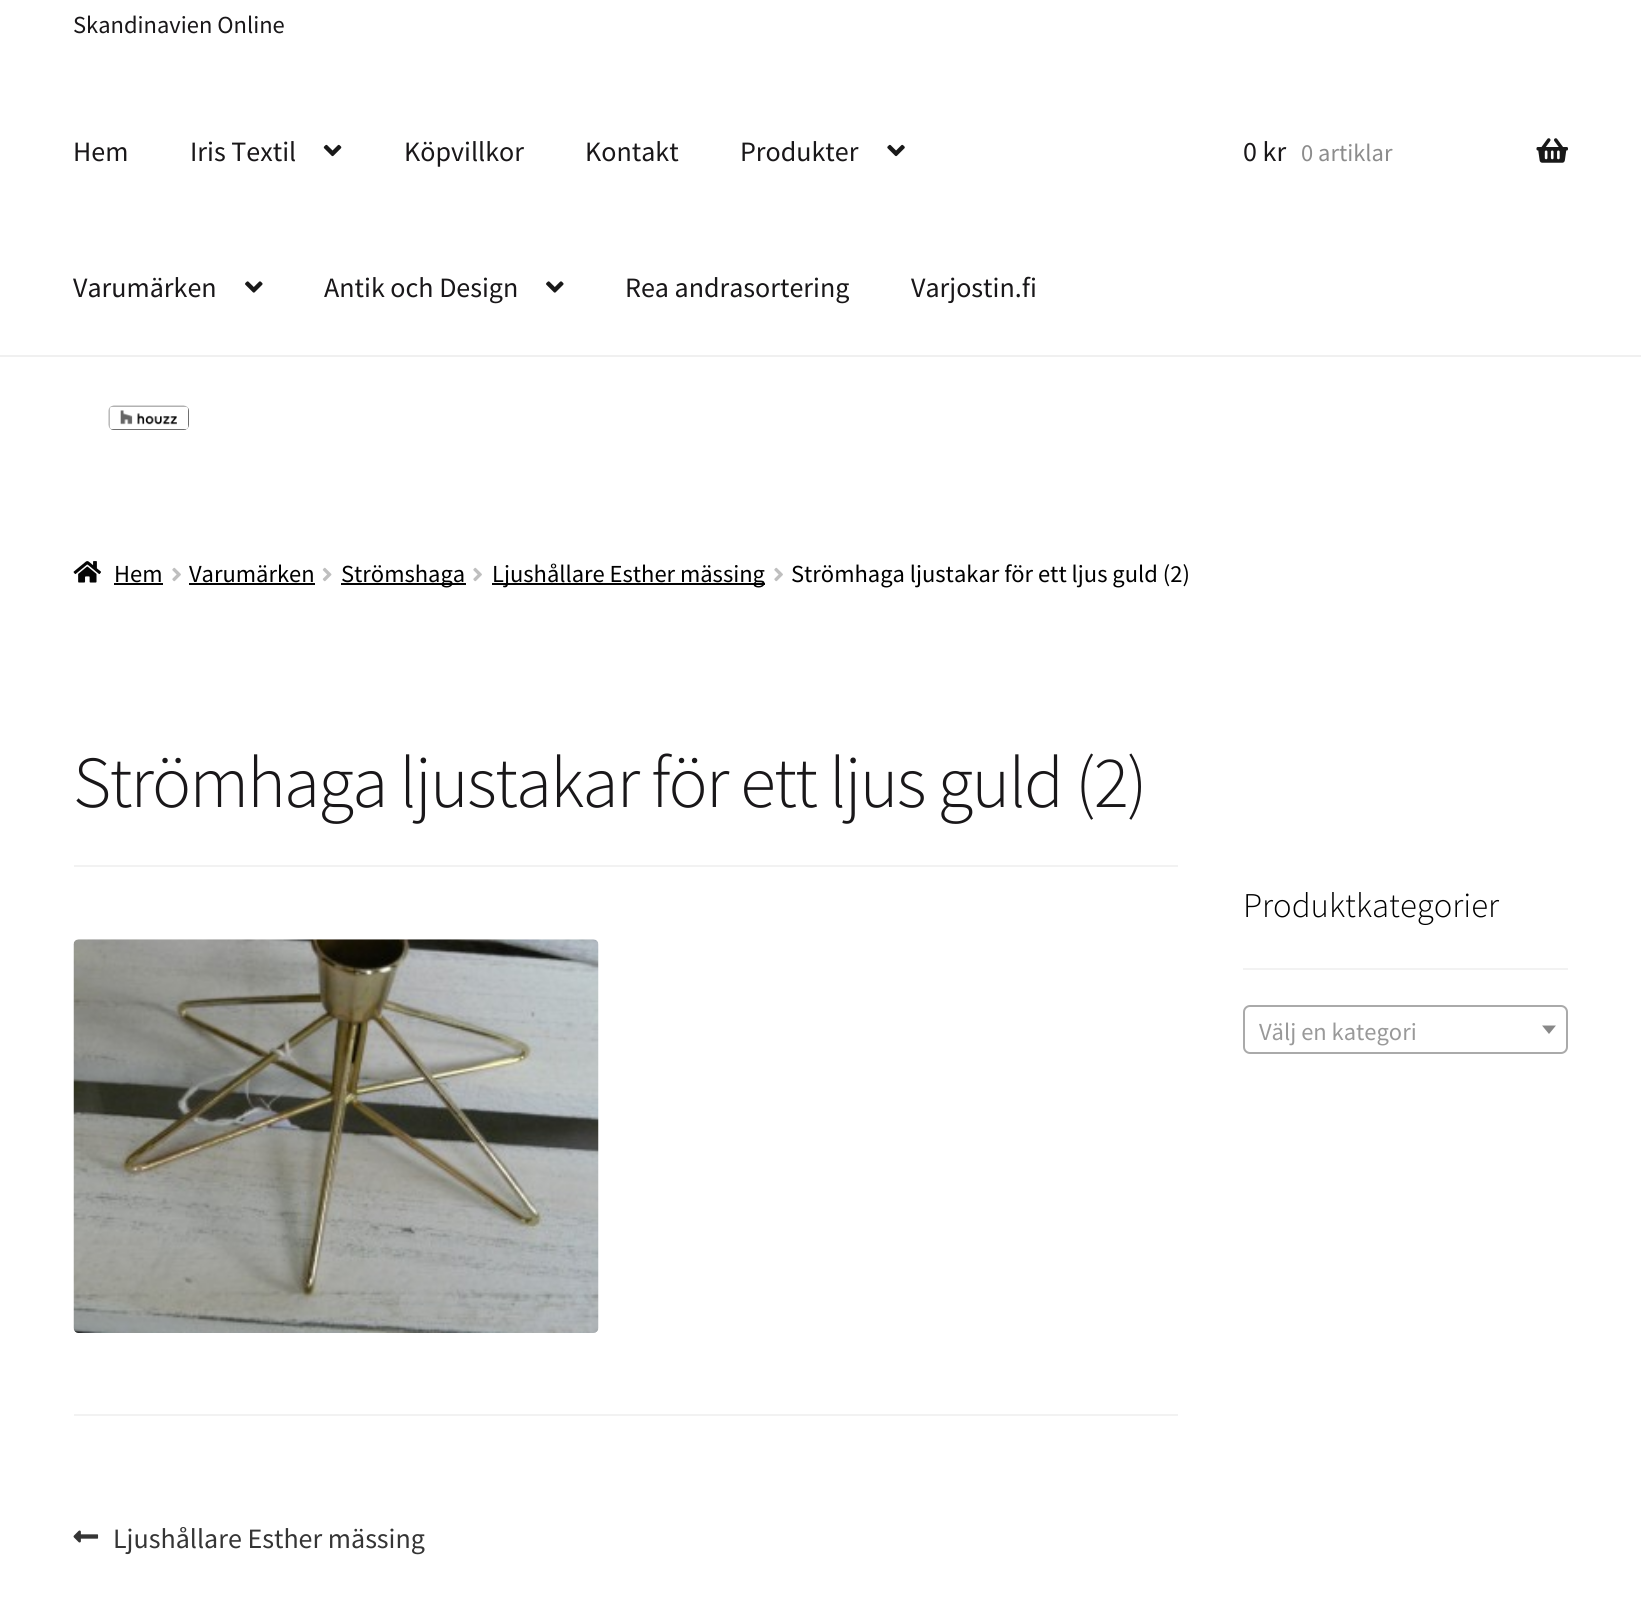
#include <cairo.h>
#include <math.h>
#include <stddef.h>


static void rgb(cairo_t *cr, int r, int g, int b)
{
	cairo_set_source_rgb(cr, r / 255.0, g / 255.0, b / 255.0);
}

static void face(cairo_t *cr, const char *family, double size, int italic, int bold)
{
	cairo_select_font_face(cr, family, italic ? CAIRO_FONT_SLANT_ITALIC : CAIRO_FONT_SLANT_NORMAL,
		bold ? CAIRO_FONT_WEIGHT_BOLD : CAIRO_FONT_WEIGHT_NORMAL);
	cairo_set_font_size(cr, size);
}

static void label(cairo_t *cr, double x, double y, const char *s)
{
	cairo_move_to(cr, x, y);
	cairo_show_text(cr, s);
}

static void tracked(cairo_t *cr, double x, double y, const char *s, double letter, double word)
{
	cairo_move_to(cr, x, y);
	while (*s) {
		char ch[5] = {0};
		int n = 0;
		do ch[n++] = *s++; while ((*s & 0xC0) == 0x80);
		cairo_show_text(cr, ch);
		cairo_rel_move_to(cr, letter + word * (*ch == ' '), 0);
	}
}

static void rect(cairo_t *cr, double x, double y, double w, double h)
{
	cairo_rectangle(cr, x, y, w, h);
	cairo_fill(cr);
}

static void rrect(cairo_t *cr, double x, double y, double w, double h, double r)
{
	cairo_new_sub_path(cr);
	cairo_arc(cr, x + w - r, y + h - r, r, 0, M_PI / 2);
	cairo_arc(cr, x + r, y + h - r, r, M_PI / 2, M_PI);
	cairo_arc(cr, x + r, y + r, r, M_PI, 1.5 * M_PI);
	cairo_arc(cr, x + w - r, y + r, r, 1.5 * M_PI, 2 * M_PI);
	cairo_close_path(cr);
}

static void image(cairo_t *cr, const char *path, double x, double y, double w, double h)
{
	cairo_surface_t *image = cairo_image_surface_create_from_png(path);
	cairo_save(cr);
	cairo_set_source_surface(cr, image, x, y);
	cairo_rectangle(cr, x, y, w, h);
	cairo_fill(cr);
	cairo_restore(cr);
	cairo_surface_destroy(image);
}

static void draw(cairo_t *cr) {
	rgb(cr, 255, 255, 255);
	cairo_paint(cr);
	rgb(cr, 240, 240, 240);
	rect(cr, 0, 355, 1641, 2);
	face(cr, "Source Sans Pro", 24.5, 0, 0);
	rgb(cr, 25, 23, 25);
	label(cr, 73, 33, "Skandinavien Online");
	face(cr, "Source Sans Pro", 28, 0, 0);
	label(cr, 73, 161, "Hem");
	label(cr, 190, 161, "Iris Textil");
	image(cr, "image0.png", 323, 144, 19, 13);
	label(cr, 404, 161, "Köpvillkor");
	label(cr, 585, 161, "Kontakt");
	label(cr, 740, 161, "Produkter");
	image(cr, "image1.png", 887, 144, 18, 13);
	label(cr, 73, 297, "Varumärken");
	image(cr, "image2.png", 245, 281, 18, 12);
	label(cr, 324, 297, "Antik och Design");
	image(cr, "image2.png", 546, 281, 18, 12);
	label(cr, 625, 297, "Rea andrasortering");
	label(cr, 911, 297, "Varjostin.fi");
	label(cr, 1243, 161, "0 kr");
	face(cr, "Source Sans Pro", 24.5, 0, 0);
	rgb(cr, 140, 140, 140);
	label(cr, 1301, 161, "0 artiklar");
	image(cr, "image3.png", 1536, 138, 32, 25);
	image(cr, "image4.png", 108, 405, 81, 25);
	image(cr, "image5.png", 73, 561, 28, 22);
	rgb(cr, 0, 0, 0);
	label(cr, 114, 582, "Hem");
	rgb(cr, 5, 5, 5);
	rect(cr, 114, 583, 49, 2);
	image(cr, "image6.png", 172, 567, 9, 15);
	rgb(cr, 0, 0, 0);
	label(cr, 189, 582, "Varumärken");
	rgb(cr, 5, 5, 5);
	rect(cr, 189, 583, 126, 2);
	image(cr, "image7.png", 322, 567, 10, 15);
	rect(cr, 341, 583, 125, 2);
	rgb(cr, 0, 0, 0);
	label(cr, 341, 582, "Strömshaga");
	image(cr, "image6.png", 473, 567, 9, 15);
	rgb(cr, 5, 5, 5);
	rect(cr, 492, 583, 273, 2);
	rgb(cr, 0, 0, 0);
	label(cr, 492, 582, "Ljushållare Esther mässing");
	image(cr, "image6.png", 774, 567, 9, 15);
	label(cr, 791, 582, "Strömhaga ljustakar för ett ljus guld (2)");
	rgb(cr, 242, 242, 242);
	rect(cr, 74, 865, 1104, 2);
	face(cr, "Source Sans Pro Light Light", 73.25, 0, 0);
	rgb(cr, 25, 23, 25);
	tracked(cr, 73, 807, "Strömhaga ljustakar för ett ljus guld (2)", -1.75, 0);
	image(cr, "image8.png", 73, 939, 526, 394);
	rgb(cr, 242, 242, 242);
	rect(cr, 74, 1414, 1104, 2);
	image(cr, "image9.png", 73, 1530, 26, 13);
	face(cr, "Source Sans Pro", 28, 0, 0);
	rgb(cr, 53, 53, 53);
	label(cr, 113, 1548, "Ljushållare Esther mässing");
	rgb(cr, 242, 242, 242);
	rect(cr, 1243, 968, 325, 2);
	face(cr, "Source Sans Pro Light Light", 34.75, 0, 0);
	rgb(cr, 0, 0, 0);
	label(cr, 1243, 917, "Produktkategorier");
	rrect(cr, 1244, 1006, 323, 47, 6);
	rgb(cr, 170, 170, 170);
	cairo_stroke(cr);
	face(cr, "Source Sans Pro", 24.5, 0, 0);
	rgb(cr, 153, 153, 153);
	label(cr, 1259, 1040, "Välj en kategori");
	rgb(cr, 136, 136, 136);
	cairo_new_path(cr);
	cairo_move_to(cr, 1542, 1025.5);
	cairo_line_to(cr, 1556, 1025.5);
	cairo_line_to(cr, 1549, 1034);
	cairo_close_path(cr);
	cairo_fill(cr);
}

int main(void) {
	cairo_surface_t *surface = cairo_image_surface_create(CAIRO_FORMAT_RGB24, 1641, 1616);
	cairo_t *cr = cairo_create(surface);
	cairo_font_options_t *options = cairo_font_options_create();
	cairo_font_options_set_hint_metrics(options, CAIRO_HINT_METRICS_OFF);
	cairo_font_options_set_hint_style(options, CAIRO_HINT_STYLE_NONE);
	cairo_set_font_options(cr, options);
	cairo_set_miter_limit(cr, 4);
	draw(cr);
	cairo_surface_write_to_png(surface, "render.png");
	cairo_font_options_destroy(options);
	cairo_destroy(cr);
	cairo_surface_destroy(surface);
	return 0;
}
